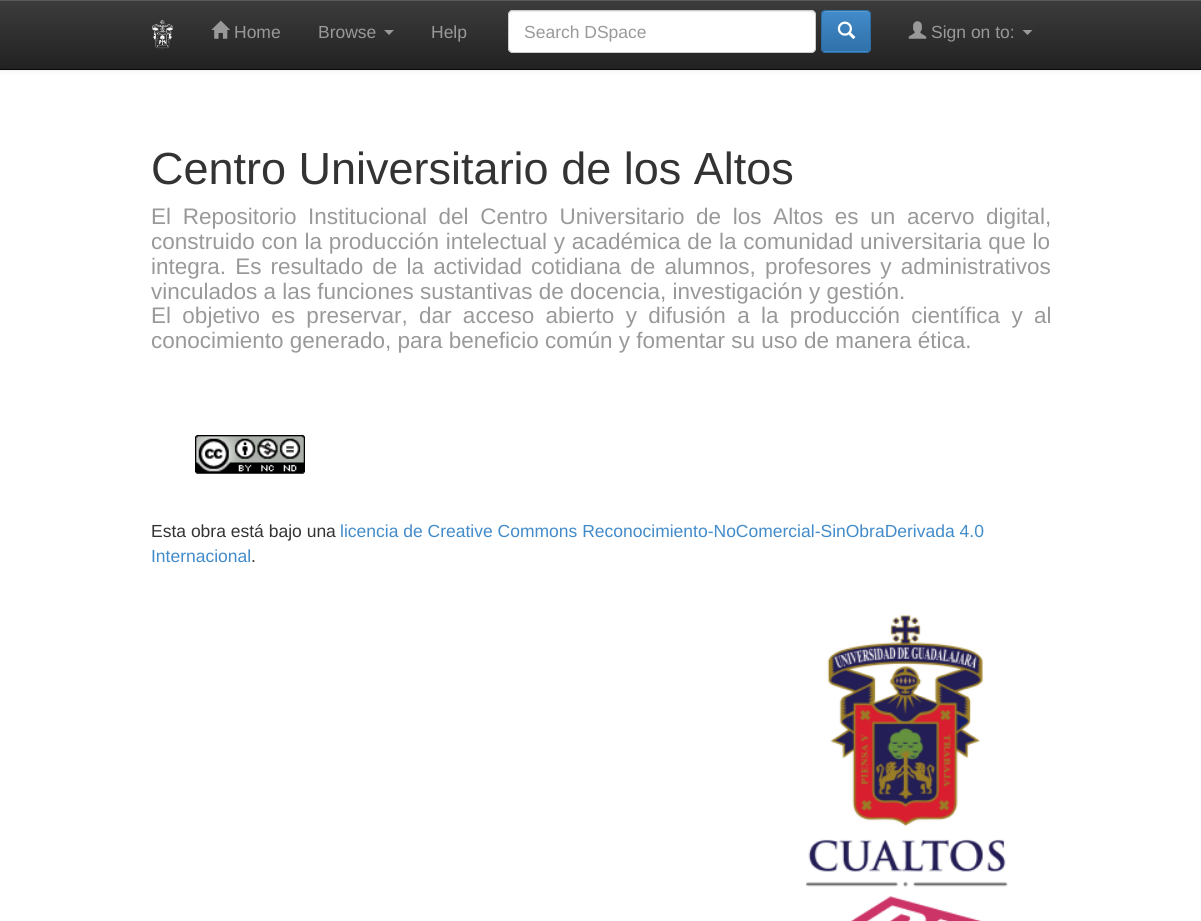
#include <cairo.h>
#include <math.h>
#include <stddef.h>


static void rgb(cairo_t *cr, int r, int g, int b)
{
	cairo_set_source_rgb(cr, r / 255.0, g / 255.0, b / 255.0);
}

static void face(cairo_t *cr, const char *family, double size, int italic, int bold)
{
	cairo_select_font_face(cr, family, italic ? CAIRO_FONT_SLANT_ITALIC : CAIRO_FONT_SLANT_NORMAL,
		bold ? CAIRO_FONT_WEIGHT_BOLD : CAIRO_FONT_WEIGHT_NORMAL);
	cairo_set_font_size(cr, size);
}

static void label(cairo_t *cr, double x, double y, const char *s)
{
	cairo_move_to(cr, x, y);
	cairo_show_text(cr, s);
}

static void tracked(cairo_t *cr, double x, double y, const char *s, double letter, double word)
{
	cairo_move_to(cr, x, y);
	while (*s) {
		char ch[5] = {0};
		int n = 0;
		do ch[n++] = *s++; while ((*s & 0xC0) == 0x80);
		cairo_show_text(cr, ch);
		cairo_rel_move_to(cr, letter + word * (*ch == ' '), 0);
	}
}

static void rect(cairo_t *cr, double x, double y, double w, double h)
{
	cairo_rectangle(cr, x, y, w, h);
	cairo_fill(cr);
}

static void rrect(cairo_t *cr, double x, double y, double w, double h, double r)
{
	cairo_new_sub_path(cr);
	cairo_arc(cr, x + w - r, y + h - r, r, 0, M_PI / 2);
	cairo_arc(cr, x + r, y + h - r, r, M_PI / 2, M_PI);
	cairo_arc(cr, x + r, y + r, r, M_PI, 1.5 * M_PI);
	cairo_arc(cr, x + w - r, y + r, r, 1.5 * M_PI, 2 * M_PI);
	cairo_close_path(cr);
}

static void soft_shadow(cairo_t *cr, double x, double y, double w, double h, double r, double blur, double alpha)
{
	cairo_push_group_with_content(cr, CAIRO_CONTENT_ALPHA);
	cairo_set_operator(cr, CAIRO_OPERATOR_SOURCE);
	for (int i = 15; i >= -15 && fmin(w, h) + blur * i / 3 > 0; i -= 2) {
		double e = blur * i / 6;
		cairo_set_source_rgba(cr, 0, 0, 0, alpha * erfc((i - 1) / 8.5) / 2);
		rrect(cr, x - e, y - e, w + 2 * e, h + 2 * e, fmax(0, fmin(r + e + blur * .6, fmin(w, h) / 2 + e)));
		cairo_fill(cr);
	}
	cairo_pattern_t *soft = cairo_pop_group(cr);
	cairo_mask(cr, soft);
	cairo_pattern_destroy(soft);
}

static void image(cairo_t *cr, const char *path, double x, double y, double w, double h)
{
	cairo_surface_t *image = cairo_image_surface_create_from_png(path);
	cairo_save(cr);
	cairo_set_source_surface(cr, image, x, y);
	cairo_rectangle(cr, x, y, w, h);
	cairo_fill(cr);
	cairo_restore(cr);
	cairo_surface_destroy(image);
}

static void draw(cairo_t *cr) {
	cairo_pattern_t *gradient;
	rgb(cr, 255, 255, 255);
	cairo_paint(cr);
	rgb(cr, 0, 0, 0);
	soft_shadow(cr, 0, 1, 1201, 70, 0, 3, 0.07);
	gradient = cairo_pattern_create_linear(601, 0, 601, 69);
	cairo_pattern_add_color_stop_rgba(gradient, 0, 0.235, 0.235, 0.235, 1);
	cairo_pattern_add_color_stop_rgba(gradient, 1, 0.133, 0.133, 0.133, 1);
	cairo_set_source(cr, gradient);
	cairo_pattern_destroy(gradient);
	rect(cr, 0, 1, 1201, 68);
	rgb(cr, 89, 89, 89);
	rect(cr, 0, 0, 1201, 1);
	rgb(cr, 8, 8, 8);
	rect(cr, 0, 69, 1201, 1);
	image(cr, "image0.png", 152, 20, 21, 29);
	image(cr, "image1.png", 211, 20, 19, 19);
	face(cr, "Liberation Sans", 17.5, 0, 0);
	rgb(cr, 153, 153, 153);
	label(cr, 234, 38, "Home");
	label(cr, 318, 38, "Browse");
	cairo_new_path(cr);
	cairo_move_to(cr, 384, 30);
	cairo_line_to(cr, 394, 30);
	cairo_line_to(cr, 389, 35);
	cairo_close_path(cr);
	cairo_fill(cr);
	label(cr, 431, 38, "Help");
	rgb(cr, 255, 255, 255);
	rrect(cr, 508, 10, 308, 43, 5);
	cairo_fill(cr);
	rgb(cr, 236, 236, 236);
	cairo_new_path(cr);
	cairo_move_to(cr, 512, 12);
	cairo_line_to(cr, 811, 12);
	cairo_curve_to(cr, 813, 12, 815, 14, 815, 16);
	cairo_curve_to(cr, 815, 13, 814, 11, 811, 11);
	cairo_line_to(cr, 513, 11);
	cairo_line_to(cr, 510, 12);
	cairo_curve_to(cr, 509, 13, 509, 15, 509, 16);
	cairo_curve_to(cr, 509, 14, 510, 12, 512, 12);
	cairo_close_path(cr);
	cairo_fill(cr);
	rrect(cr, 508.5, 10.5, 307, 42, 4.5);
	rgb(cr, 204, 204, 204);
	cairo_set_line_width(cr, 1);
	cairo_stroke(cr);
	rgb(cr, 153, 153, 153);
	label(cr, 524, 38, "Search DSpace");
	rgb(cr, 66, 139, 202);
	rrect(cr, 821, 10, 50, 43, 5);
	cairo_fill(cr);
	cairo_save(cr);
	rrect(cr, 821, 10, 50, 43, 5);
	cairo_clip(cr);
	gradient = cairo_pattern_create_linear(846, 11, 846, 51);
	cairo_pattern_add_color_stop_rgba(gradient, 0, 0.259, 0.545, 0.792, 1);
	cairo_pattern_add_color_stop_rgba(gradient, 1, 0.188, 0.443, 0.663, 1);
	cairo_set_source(cr, gradient);
	cairo_pattern_destroy(gradient);
	rect(cr, 821, 11, 50, 40);
	cairo_restore(cr);
	rgb(cr, 94, 156, 210);
	cairo_new_path(cr);
	cairo_move_to(cr, 826, 12);
	cairo_line_to(cr, 866, 12);
	cairo_curve_to(cr, 868, 12, 870, 14, 870, 16);
	cairo_line_to(cr, 870, 15);
	cairo_curve_to(cr, 870, 13, 868, 11, 866, 11);
	cairo_line_to(cr, 827, 11);
	cairo_curve_to(cr, 826, 11, 824, 12, 824, 13);
	cairo_close_path(cr);
	cairo_fill(cr);
	rrect(cr, 821.5, 10.5, 49, 42, 4.5);
	rgb(cr, 45, 108, 162);
	cairo_stroke(cr);
	image(cr, "image2.png", 837, 21, 19, 18);
	image(cr, "image3.png", 908, 21, 19, 18);
	rgb(cr, 153, 153, 153);
	label(cr, 931, 38, "Sign on to:");
	cairo_new_path(cr);
	cairo_move_to(cr, 1022.5, 30);
	cairo_line_to(cr, 1032.5, 30);
	cairo_line_to(cr, 1027.5, 35);
	cairo_close_path(cr);
	cairo_fill(cr);
	face(cr, "Liberation Sans", 45, 0, 0);
	rgb(cr, 51, 51, 51);
	label(cr, 151, 184, "Centro Universitario de los Altos");
	face(cr, "Liberation Sans", 22.5, 0, 0);
	rgb(cr, 153, 153, 153);
	tracked(cr, 151, 224, "El Repositorio Institucional del Centro Universitario de los Altos es un acervo digital,", 0, 5.4);
	tracked(cr, 151, 249, "construido con la producción intelectual y académica de la comunidad universitaria que lo", 0, 0.5);
	tracked(cr, 151, 274, "integra. Es resultado de la actividad cotidiana de alumnos, profesores y administrativos", 0, 2.9);
	label(cr, 151, 299, "vinculados a las funciones sustantivas de docencia, investigación y gestión.");
	tracked(cr, 151, 323, "El objetivo es preservar, dar acceso abierto y difusión a la producción científica y al", 0, 5.1);
	label(cr, 151, 348, "conocimiento generado, para beneficio común y fomentar su uso de manera ética.");
	image(cr, "image4.png", 195, 435, 110, 39);
	face(cr, "Liberation Sans", 17.5, 0, 0);
	rgb(cr, 51, 51, 51);
	label(cr, 151, 537, "Esta obra está bajo una");
	rgb(cr, 66, 139, 202);
	label(cr, 340, 537, "licencia de Creative Commons Reconocimiento-NoComercial-SinObraDerivada 4.0");
	label(cr, 151, 562, "Internacional");
	rgb(cr, 51, 51, 51);
	label(cr, 251, 562, ".");
	image(cr, "image5.png", 806, 614, 202, 307);
}

int main(void) {
	cairo_surface_t *surface = cairo_image_surface_create(CAIRO_FORMAT_RGB24, 1201, 921);
	cairo_t *cr = cairo_create(surface);
	cairo_font_options_t *options = cairo_font_options_create();
	cairo_font_options_set_hint_metrics(options, CAIRO_HINT_METRICS_OFF);
	cairo_font_options_set_hint_style(options, CAIRO_HINT_STYLE_NONE);
	cairo_set_font_options(cr, options);
	cairo_set_miter_limit(cr, 4);
	draw(cr);
	cairo_surface_write_to_png(surface, "render.png");
	cairo_font_options_destroy(options);
	cairo_destroy(cr);
	cairo_surface_destroy(surface);
	return 0;
}
